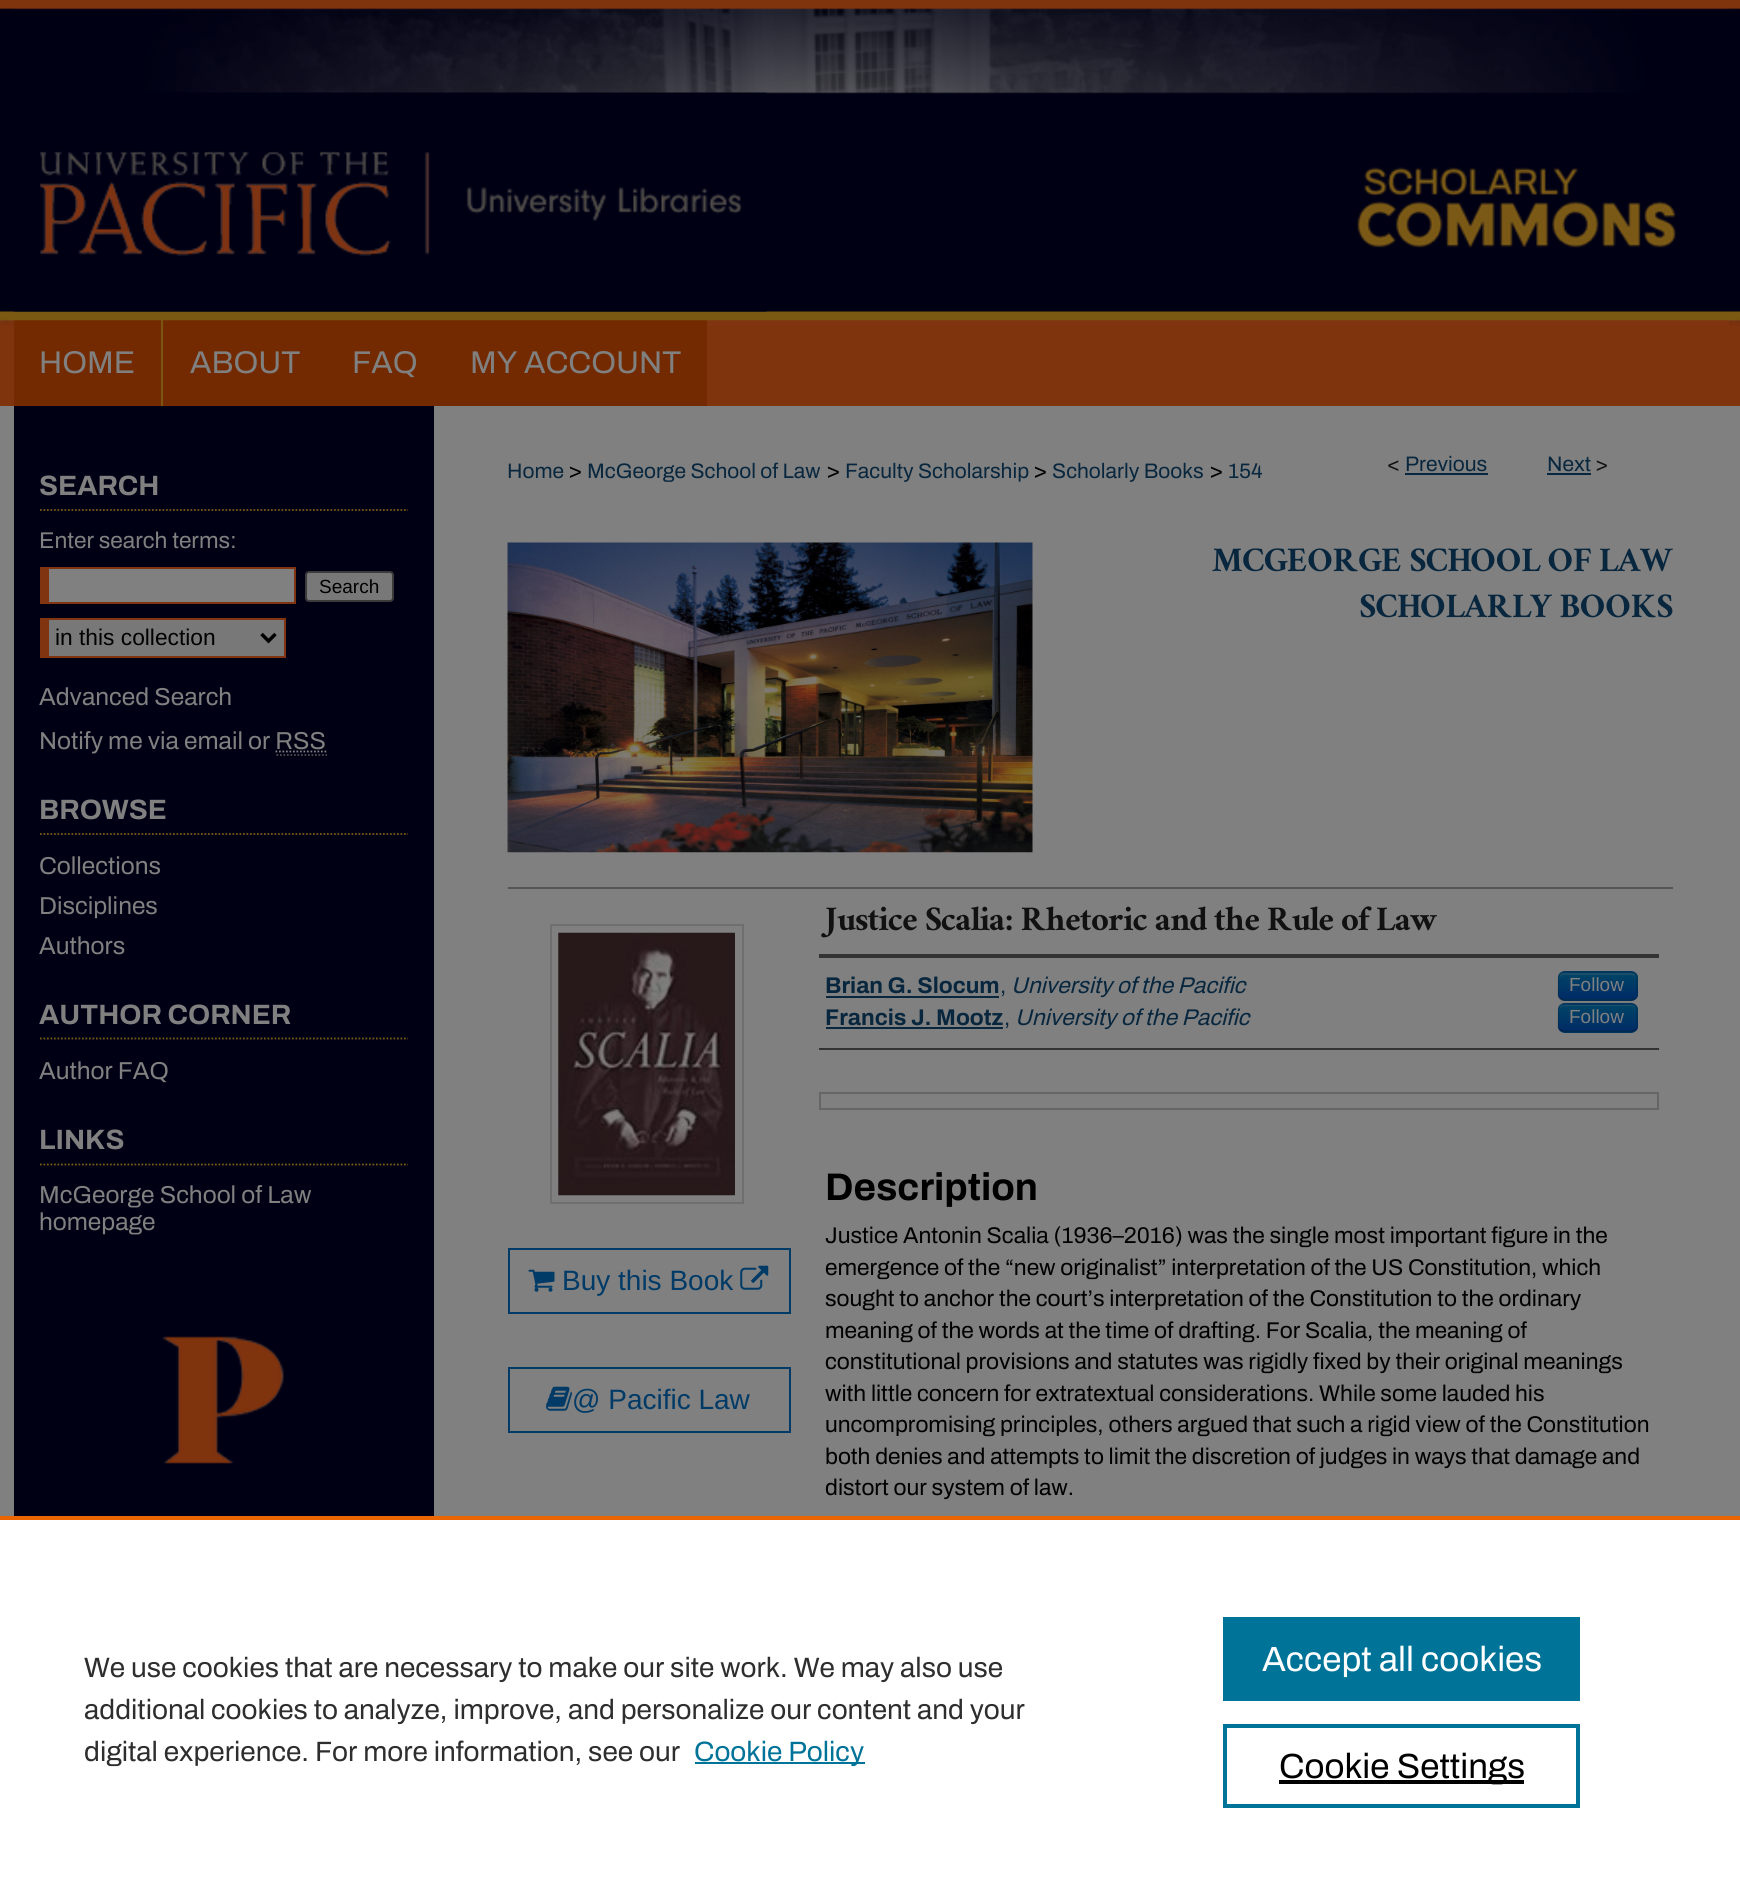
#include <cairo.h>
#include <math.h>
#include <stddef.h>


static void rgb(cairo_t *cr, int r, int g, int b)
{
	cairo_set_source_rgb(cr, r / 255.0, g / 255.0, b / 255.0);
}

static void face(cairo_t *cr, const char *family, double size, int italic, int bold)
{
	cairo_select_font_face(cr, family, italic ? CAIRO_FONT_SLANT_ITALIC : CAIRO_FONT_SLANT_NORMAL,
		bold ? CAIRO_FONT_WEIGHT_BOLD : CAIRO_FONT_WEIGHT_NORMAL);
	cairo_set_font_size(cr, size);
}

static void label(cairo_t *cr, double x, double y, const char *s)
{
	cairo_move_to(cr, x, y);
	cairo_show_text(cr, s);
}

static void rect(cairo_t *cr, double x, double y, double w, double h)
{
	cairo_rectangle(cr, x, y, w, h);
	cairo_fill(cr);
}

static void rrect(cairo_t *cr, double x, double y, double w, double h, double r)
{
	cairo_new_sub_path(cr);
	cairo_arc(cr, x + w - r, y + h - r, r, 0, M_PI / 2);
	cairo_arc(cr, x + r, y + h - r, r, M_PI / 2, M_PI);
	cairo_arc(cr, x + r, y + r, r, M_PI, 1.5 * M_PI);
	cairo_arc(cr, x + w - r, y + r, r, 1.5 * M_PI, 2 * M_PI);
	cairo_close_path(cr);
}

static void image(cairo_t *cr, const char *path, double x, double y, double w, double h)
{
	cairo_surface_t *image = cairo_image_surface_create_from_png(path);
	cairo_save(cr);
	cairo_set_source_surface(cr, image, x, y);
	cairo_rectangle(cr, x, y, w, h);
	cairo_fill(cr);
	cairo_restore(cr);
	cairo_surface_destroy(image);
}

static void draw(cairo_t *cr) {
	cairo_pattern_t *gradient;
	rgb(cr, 128, 128, 128);
	cairo_paint(cr);
	image(cr, "image0.png", 0, 0, 1740, 406);
	rgb(cr, 128, 52, 15);
	rect(cr, 707, 320, 1022, 6);
	rgb(cr, 115, 42, 0);
	rect(cr, 14, 320, 147, 86);
	rgb(cr, 122, 86, 17);
	rect(cr, 161, 320, 2, 86);
	rgb(cr, 115, 42, 0);
	rect(cr, 163, 320, 544, 86);
	image(cr, "image1.png", 14, 0, 1715, 321);
	image(cr, "image2.png", 14, 92, 753, 220);
	face(cr, "Archivo", 31.5, 0, 0);
	rgb(cr, 128, 128, 128);
	label(cr, 39, 373, "HOME");
	label(cr, 190, 373, "ABOUT");
	label(cr, 352, 373, "FAQ");
	label(cr, 470, 373, "MY ACCOUNT");
	rgb(cr, 0, 0, 20);
	rect(cr, 14, 406, 420, 1110);
	cairo_new_path(cr);
	cairo_move_to(cr, 40, 510);
	cairo_line_to(cr, 408, 510);
	rgb(cr, 122, 89, 23);
	cairo_set_line_width(cr, 1.8);
	cairo_set_dash(cr, (double[]){1.75, 1.75}, 2, 0);
	cairo_stroke(cr);
	face(cr, "Archivo", 28, 0, 1);
	rgb(cr, 128, 128, 128);
	label(cr, 39, 495, "SEARCH");
	face(cr, "Archivo", 22.75, 0, 0);
	label(cr, 39, 548, "Enter search terms:");
	rect(cr, 49, 569, 245, 33);
	rgb(cr, 128, 52, 15);
	rect(cr, 49, 567, 247, 2);
	rect(cr, 294, 567, 2, 37);
	rect(cr, 49, 602, 247, 2);
	rect(cr, 40, 567, 9, 37);
	rgb(cr, 120, 120, 120);
	rrect(cr, 306, 572, 87, 29, 3);
	cairo_fill_preserve(cr);
	rgb(cr, 59, 59, 59);
	cairo_set_line_width(cr, 2);
	cairo_set_dash(cr, NULL, 0, 0);
	cairo_stroke(cr);
	face(cr, "Liberation Sans", 19, 0, 0);
	rgb(cr, 0, 0, 0);
	label(cr, 319, 593, "Search");
	rgb(cr, 120, 120, 120);
	rect(cr, 49, 620, 235, 36);
	rgb(cr, 128, 52, 15);
	rect(cr, 49, 618, 236, 2);
	rect(cr, 284, 618, 2, 40);
	rect(cr, 49, 656, 236, 2);
	rect(cr, 40, 618, 9, 40);
	cairo_new_path(cr);
	cairo_move_to(cr, 261.5, 634);
	cairo_line_to(cr, 268.5, 641);
	cairo_line_to(cr, 275.5, 634);
	rgb(cr, 0, 0, 0);
	cairo_set_line_width(cr, 3.5);
	cairo_stroke(cr);
	face(cr, "Liberation Sans", 22.75, 0, 0);
	label(cr, 55, 645, "in this collection");
	face(cr, "Archivo", 24.5, 0, 0);
	rgb(cr, 128, 128, 128);
	label(cr, 39, 705, "Advanced Search");
	label(cr, 39, 749, "Notify me via email or RSS");
	cairo_new_path(cr);
	cairo_move_to(cr, 275.5, 751.5);
	cairo_line_to(cr, 326.5, 751.5);
	cairo_set_line_width(cr, 1.8);
	cairo_set_dash(cr, (double[]){1.75, 1.75}, 2, 0);
	cairo_stroke(cr);
	cairo_new_path(cr);
	cairo_move_to(cr, 276.5, 755);
	cairo_line_to(cr, 327, 755);
	rgb(cr, 77, 77, 77);
	cairo_stroke(cr);
	cairo_new_path(cr);
	cairo_move_to(cr, 40, 834);
	cairo_line_to(cr, 408, 834);
	rgb(cr, 122, 89, 23);
	cairo_stroke(cr);
	face(cr, "Archivo", 28, 0, 1);
	rgb(cr, 128, 128, 128);
	label(cr, 39, 819, "BROWSE");
	face(cr, "Archivo", 24.5, 0, 0);
	label(cr, 39, 874, "Collections");
	label(cr, 39, 914, "Disciplines");
	label(cr, 39, 954, "Authors");
	cairo_new_path(cr);
	cairo_move_to(cr, 40, 1038.5);
	cairo_line_to(cr, 408, 1038.5);
	rgb(cr, 122, 89, 23);
	cairo_stroke(cr);
	face(cr, "Archivo", 28, 0, 1);
	rgb(cr, 128, 128, 128);
	label(cr, 39, 1024, "AUTHOR CORNER");
	face(cr, "Archivo", 24.5, 0, 0);
	label(cr, 39, 1079, "Author FAQ");
	cairo_new_path(cr);
	cairo_move_to(cr, 40, 1164.5);
	cairo_line_to(cr, 408, 1164.5);
	rgb(cr, 122, 89, 23);
	cairo_stroke(cr);
	face(cr, "Archivo", 28, 0, 1);
	rgb(cr, 128, 128, 128);
	label(cr, 39, 1149, "LINKS");
	face(cr, "Archivo", 24.5, 0, 0);
	label(cr, 39, 1203, "McGeorge School of Law");
	label(cr, 39, 1230, "homepage");
	image(cr, "image3.png", 162, 1336, 122, 128);
	face(cr, "Archivo", 21, 0, 0);
	rgb(cr, 8, 39, 62);
	label(cr, 507, 478, "Home");
	face(cr, "Archivo", 22.75, 0, 0);
	rgb(cr, 0, 0, 0);
	label(cr, 568, 478, ">");
	face(cr, "Archivo", 21, 0, 0);
	rgb(cr, 8, 39, 62);
	label(cr, 587, 478, "McGeorge School of Law");
	face(cr, "Archivo", 22.75, 0, 0);
	rgb(cr, 0, 0, 0);
	label(cr, 826, 478, ">");
	face(cr, "Archivo", 21, 0, 0);
	rgb(cr, 8, 39, 62);
	label(cr, 845, 478, "Faculty Scholarship");
	face(cr, "Archivo", 22.75, 0, 0);
	rgb(cr, 0, 0, 0);
	label(cr, 1033, 478, ">");
	face(cr, "Archivo", 21, 0, 0);
	rgb(cr, 8, 39, 62);
	label(cr, 1052, 478, "Scholarly Books");
	face(cr, "Archivo", 22.75, 0, 0);
	rgb(cr, 0, 0, 0);
	label(cr, 1209, 478, ">");
	face(cr, "Archivo", 21, 0, 0);
	rgb(cr, 8, 39, 62);
	label(cr, 1228, 478, "154");
	rgb(cr, 17, 17, 17);
	label(cr, 1387, 471, "<");
	rgb(cr, 8, 39, 62);
	label(cr, 1405, 471, "Previous");
	rect(cr, 1405, 473, 83, 2);
	label(cr, 1547, 471, "Next");
	rect(cr, 1547, 473, 44, 2);
	rgb(cr, 17, 17, 17);
	label(cr, 1595, 471, ">");
	image(cr, "image4.png", 507, 542, 526, 311);
	face(cr, "Ramaraja", 38.5, 0, 0);
	rgb(cr, 8, 39, 62);
	label(cr, 1212, 571, "MCGEORGE SCHOOL OF LAW");
	label(cr, 1359, 617, "SCHOLARLY BOOKS");
	cairo_rectangle(cr, 551, 925, 192, 278);
	rgb(cr, 111, 111, 111);
	cairo_set_line_width(cr, 2);
	cairo_set_dash(cr, NULL, 0, 0);
	cairo_stroke(cr);
	image(cr, "image5.png", 558, 932, 177, 264);
	cairo_rectangle(cr, 509, 1249, 281, 64);
	rgb(cr, 0, 58, 102);
	cairo_stroke(cr);
	image(cr, "image6.png", 528, 1269, 27, 23);
	face(cr, "Liberation Sans", 28, 0, 0);
	label(cr, 562, 1290, "Buy this Book");
	image(cr, "image7.png", 740, 1265, 29, 25);
	cairo_rectangle(cr, 509, 1368, 281, 64);
	cairo_stroke(cr);
	image(cr, "image8.png", 546, 1386, 26, 25);
	label(cr, 572, 1409, "@ Pacific Law");
	rgb(cr, 85, 85, 85);
	rect(cr, 508, 887, 1165, 2);
	face(cr, "Ramaraja", 38.5, 0, 0);
	rgb(cr, 17, 17, 17);
	label(cr, 825, 930, "Justice Scalia: Rhetoric and the Rule of Law");
	rgb(cr, 51, 51, 51);
	rect(cr, 819, 954, 840, 4);
	rect(cr, 819, 1048, 840, 2);
	face(cr, "Archivo", 22.75, 0, 1);
	rgb(cr, 8, 39, 62);
	label(cr, 825, 993, "Brian G. Slocum");
	rect(cr, 826, 996, 173, 2);
	face(cr, "Archivo", 22.75, 0, 0);
	label(cr, 1000, 993, ",");
	face(cr, "Archivo", 22.75, 1, 0);
	label(cr, 1011, 993, "University of the Pacific");
	rgb(cr, 0, 58, 102);
	rrect(cr, 1558, 971, 80, 30, 7);
	cairo_fill(cr);
	cairo_save(cr);
	rrect(cr, 1558, 971, 80, 30, 7);
	cairo_clip(cr);
	gradient = cairo_pattern_create_linear(1598, 973, 1598, 999);
	cairo_pattern_add_color_stop_rgba(gradient, 0, 0, 0.267, 0.4, 1);
	cairo_pattern_add_color_stop_rgba(gradient, 1, 0, 0.169, 0.4, 1);
	cairo_set_source(cr, gradient);
	cairo_pattern_destroy(gradient);
	rect(cr, 1558, 973, 80, 26);
	cairo_restore(cr);
	cairo_set_source_rgba(cr, 0.502, 0.502, 0.502, 0.2);
	cairo_new_path(cr);
	cairo_move_to(cr, 1564, 975);
	cairo_line_to(cr, 1631, 975);
	cairo_curve_to(cr, 1634, 975, 1636, 977, 1636, 980);
	cairo_curve_to(cr, 1636, 970, 1628, 973, 1620, 973);
	cairo_line_to(cr, 1575, 973);
	cairo_curve_to(cr, 1567, 973, 1559, 970, 1559, 980);
	cairo_curve_to(cr, 1559, 977, 1562, 975, 1564, 975);
	cairo_close_path(cr);
	cairo_fill(cr);
	cairo_new_path(cr);
	cairo_move_to(cr, 1635.5, 998.5);
	cairo_curve_to(cr, 1634, 999.5, 1632.5, 1000, 1631, 1000);
	cairo_line_to(cr, 1564.5, 1000);
	cairo_curve_to(cr, 1563, 1000, 1561.5, 999.5, 1560, 998.5);
	cairo_set_source_rgba(cr, 0, 0, 0, 0.25);
	cairo_set_line_width(cr, 1.8);
	cairo_stroke(cr);
	cairo_new_path(cr);
	cairo_move_to(cr, 1560, 998.5);
	cairo_curve_to(cr, 1557, 995.5, 1558.5, 990, 1558.5, 986);
	cairo_curve_to(cr, 1558.5, 970.5, 1559, 972, 1575.5, 972);
	cairo_line_to(cr, 1620, 972);
	cairo_curve_to(cr, 1636.5, 972, 1637, 970.5, 1637, 986);
	cairo_curve_to(cr, 1637, 990, 1638.5, 995.5, 1635.5, 998.5);
	cairo_set_source_rgba(cr, 0, 0, 0, 0.1);
	cairo_stroke(cr);
	face(cr, "Liberation Sans", 19, 0, 0);
	rgb(cr, 128, 128, 128);
	label(cr, 1569, 991, "Follow");
	face(cr, "Archivo", 22.75, 0, 1);
	rgb(cr, 8, 39, 62);
	label(cr, 825, 1025, "Francis J. Mootz");
	rect(cr, 826, 1027, 177, 2);
	face(cr, "Archivo", 22.75, 0, 0);
	label(cr, 1004, 1025, ",");
	face(cr, "Archivo", 22.75, 1, 0);
	label(cr, 1015, 1025, "University of the Pacific");
	rgb(cr, 0, 58, 102);
	rrect(cr, 1558, 1003, 80, 30, 7);
	cairo_fill(cr);
	cairo_save(cr);
	rrect(cr, 1558, 1003, 80, 30, 7);
	cairo_clip(cr);
	gradient = cairo_pattern_create_linear(1598, 1005, 1598, 1031);
	cairo_pattern_add_color_stop_rgba(gradient, 0, 0, 0.267, 0.4, 1);
	cairo_pattern_add_color_stop_rgba(gradient, 1, 0, 0.169, 0.4, 1);
	cairo_set_source(cr, gradient);
	cairo_pattern_destroy(gradient);
	rect(cr, 1558, 1005, 80, 26);
	cairo_restore(cr);
	cairo_set_source_rgba(cr, 0.502, 0.502, 0.502, 0.2);
	cairo_new_path(cr);
	cairo_move_to(cr, 1564, 1006);
	cairo_line_to(cr, 1631, 1006);
	cairo_curve_to(cr, 1634, 1006, 1636, 1009, 1636, 1012);
	cairo_curve_to(cr, 1636, 1002, 1628, 1005, 1620, 1005);
	cairo_line_to(cr, 1575, 1005);
	cairo_curve_to(cr, 1567, 1005, 1559, 1002, 1559, 1012);
	cairo_curve_to(cr, 1559, 1009, 1562, 1006, 1564, 1006);
	cairo_close_path(cr);
	cairo_fill(cr);
	cairo_new_path(cr);
	cairo_move_to(cr, 1635.5, 1030);
	cairo_curve_to(cr, 1634, 1031, 1632.5, 1031.5, 1631, 1031.5);
	cairo_line_to(cr, 1564.5, 1031.5);
	cairo_curve_to(cr, 1563, 1031.5, 1561.5, 1031, 1560, 1030);
	cairo_set_source_rgba(cr, 0, 0, 0, 0.25);
	cairo_stroke(cr);
	cairo_new_path(cr);
	cairo_move_to(cr, 1560, 1030);
	cairo_curve_to(cr, 1557, 1027, 1558.5, 1021.5, 1558.5, 1017.5);
	cairo_curve_to(cr, 1558.5, 1002, 1559, 1003.5, 1575.5, 1003.5);
	cairo_line_to(cr, 1620, 1003.5);
	cairo_curve_to(cr, 1636.5, 1003.5, 1637, 1002, 1637, 1017.5);
	cairo_curve_to(cr, 1637, 1021.5, 1638.5, 1027, 1635.5, 1030);
	cairo_set_source_rgba(cr, 0, 0, 0, 0.1);
	cairo_stroke(cr);
	face(cr, "Liberation Sans", 19, 0, 0);
	rgb(cr, 128, 128, 128);
	label(cr, 1569, 1023, "Follow");
	cairo_rectangle(cr, 820, 1093, 838, 16);
	rgb(cr, 102, 102, 102);
	cairo_set_line_width(cr, 2);
	cairo_stroke(cr);
	face(cr, "Archivo", 38.5, 0, 1);
	rgb(cr, 0, 0, 0);
	label(cr, 825, 1200, "Description");
	face(cr, "Archivo", 22.75, 0, 0);
	label(cr, 825, 1243, "Justice Antonin Scalia (1936–2016) was the single most important figure in the");
	label(cr, 825, 1275, "emergence of the “new originalist” interpretation of the US Constitution, which");
	label(cr, 825, 1306, "sought to anchor the court’s interpretation of the Constitution to the ordinary");
	label(cr, 825, 1338, "meaning of the words at the time of drafting. For Scalia, the meaning of");
	label(cr, 825, 1369, "constitutional provisions and statutes was rigidly fixed by their original meanings");
	label(cr, 825, 1401, "with little concern for extratextual considerations. While some lauded his");
	label(cr, 825, 1432, "uncompromising principles, others argued that such a rigid view of the Constitution");
	label(cr, 825, 1464, "both denies and attempts to limit the discretion of judges in ways that damage and");
	label(cr, 825, 1495, "distort our system of law.");
	rgb(cr, 255, 255, 255);
	rect(cr, 0, 1520, 1740, 380);
	rgb(cr, 235, 101, 0);
	rect(cr, 0, 1516, 1740, 4);
	face(cr, "Archivo", 28, 0, 0);
	rgb(cr, 46, 46, 46);
	label(cr, 84, 1677, "We use cookies that are necessary to make our site work. We may also use");
	label(cr, 84, 1719, "additional cookies to analyze, improve, and personalize our content and your");
	label(cr, 84, 1761, "digital experience. For more information, see our");
	rgb(cr, 0, 115, 152);
	rect(cr, 695, 1762, 170, 2);
	label(cr, 694, 1761, "Cookie Policy");
	rect(cr, 1223, 1617, 357, 84);
	face(cr, "Archivo", 35, 0, 0);
	rgb(cr, 255, 255, 255);
	label(cr, 1262, 1671, "Accept all cookies");
	cairo_rectangle(cr, 1225, 1726, 353, 80);
	rgb(cr, 0, 115, 152);
	cairo_set_line_width(cr, 4);
	cairo_stroke(cr);
	rgb(cr, 0, 0, 0);
	rect(cr, 1279, 1780, 245, 4);
	label(cr, 1279, 1778, "Cookie Settings");
}

int main(void) {
	cairo_surface_t *surface = cairo_image_surface_create(CAIRO_FORMAT_RGB24, 1740, 1900);
	cairo_t *cr = cairo_create(surface);
	cairo_font_options_t *options = cairo_font_options_create();
	cairo_font_options_set_hint_metrics(options, CAIRO_HINT_METRICS_OFF);
	cairo_font_options_set_hint_style(options, CAIRO_HINT_STYLE_NONE);
	cairo_set_font_options(cr, options);
	cairo_set_miter_limit(cr, 4);
	draw(cr);
	cairo_surface_write_to_png(surface, "render.png");
	cairo_font_options_destroy(options);
	cairo_destroy(cr);
	cairo_surface_destroy(surface);
	return 0;
}
